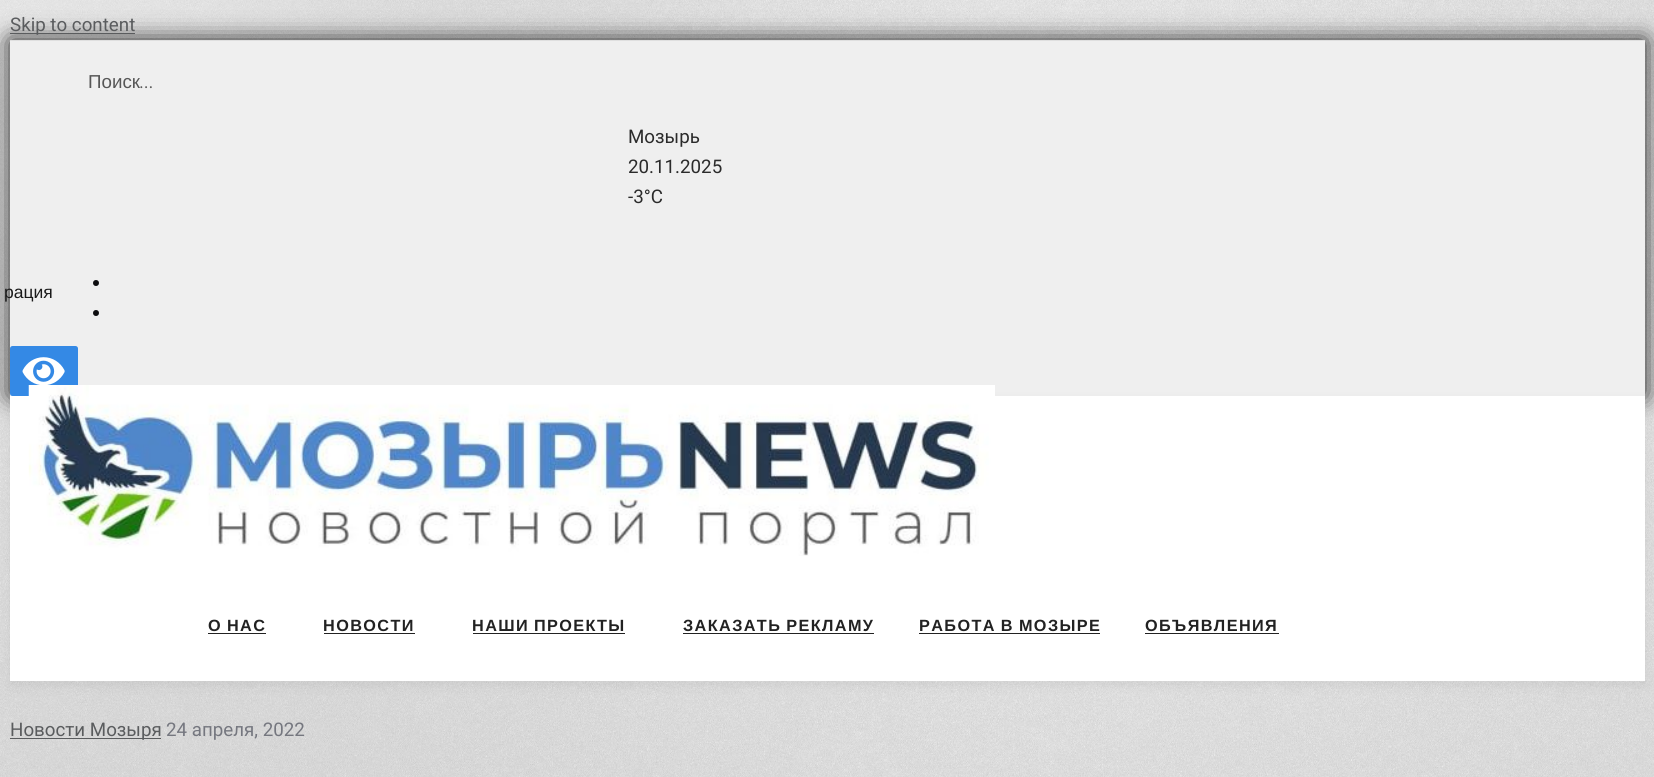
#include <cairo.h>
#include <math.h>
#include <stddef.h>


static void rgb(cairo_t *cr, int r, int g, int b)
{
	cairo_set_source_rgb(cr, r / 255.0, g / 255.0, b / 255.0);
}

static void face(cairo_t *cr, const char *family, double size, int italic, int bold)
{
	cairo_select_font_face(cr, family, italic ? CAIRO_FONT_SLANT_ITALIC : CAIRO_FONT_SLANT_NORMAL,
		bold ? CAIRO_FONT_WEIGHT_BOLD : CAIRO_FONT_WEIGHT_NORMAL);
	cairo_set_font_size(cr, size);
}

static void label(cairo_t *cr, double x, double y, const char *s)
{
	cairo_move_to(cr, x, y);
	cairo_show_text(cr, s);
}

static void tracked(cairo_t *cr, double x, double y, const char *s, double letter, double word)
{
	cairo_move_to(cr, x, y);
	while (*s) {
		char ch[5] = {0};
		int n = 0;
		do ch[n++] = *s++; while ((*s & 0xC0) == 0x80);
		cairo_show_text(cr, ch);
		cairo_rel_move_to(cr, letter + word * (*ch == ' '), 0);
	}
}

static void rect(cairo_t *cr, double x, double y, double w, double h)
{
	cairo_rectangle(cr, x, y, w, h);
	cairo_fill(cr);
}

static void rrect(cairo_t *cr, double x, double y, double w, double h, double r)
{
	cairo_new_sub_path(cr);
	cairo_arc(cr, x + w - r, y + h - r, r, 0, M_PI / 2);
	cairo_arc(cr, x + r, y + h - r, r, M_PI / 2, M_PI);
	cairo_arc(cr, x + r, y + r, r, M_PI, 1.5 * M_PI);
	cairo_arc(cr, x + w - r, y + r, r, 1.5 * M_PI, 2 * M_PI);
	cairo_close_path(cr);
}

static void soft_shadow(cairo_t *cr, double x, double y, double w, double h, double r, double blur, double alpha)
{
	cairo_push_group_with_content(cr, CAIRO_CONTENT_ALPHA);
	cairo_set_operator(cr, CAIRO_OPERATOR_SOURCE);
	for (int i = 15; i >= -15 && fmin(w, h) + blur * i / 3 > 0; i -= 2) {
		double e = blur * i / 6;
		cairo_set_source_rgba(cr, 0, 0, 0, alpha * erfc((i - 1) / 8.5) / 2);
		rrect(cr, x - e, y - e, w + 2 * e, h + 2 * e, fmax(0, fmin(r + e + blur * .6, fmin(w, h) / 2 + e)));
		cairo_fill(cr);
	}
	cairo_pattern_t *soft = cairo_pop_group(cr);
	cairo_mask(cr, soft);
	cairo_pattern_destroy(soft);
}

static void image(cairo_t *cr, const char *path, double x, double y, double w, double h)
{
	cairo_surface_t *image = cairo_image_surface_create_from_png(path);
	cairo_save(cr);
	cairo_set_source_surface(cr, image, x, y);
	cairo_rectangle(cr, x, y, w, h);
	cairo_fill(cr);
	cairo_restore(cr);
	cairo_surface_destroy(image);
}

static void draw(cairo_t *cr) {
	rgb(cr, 255, 255, 255);
	cairo_paint(cr);
	image(cr, "image0.png", 0, 0, 1654, 777);
	rgb(cr, 0, 0, 0);
	soft_shadow(cr, 10, 40, 1635, 356, 0, 12, 0.86);
	rgb(cr, 90, 92, 94);
	rect(cr, 10, 33, 125, 1);
	face(cr, "Roboto", 18.75, 0, 0);
	label(cr, 10, 31, "Skip to content");
	rgb(cr, 239, 239, 239);
	rect(cr, 10, 41, 1635, 355);
	rgb(cr, 223, 223, 223);
	rect(cr, 10, 40, 1635, 1);
	face(cr, "Liberation Sans", 18.75, 0, 0);
	rgb(cr, 87, 87, 87);
	label(cr, 88, 88, "Поиск");
	face(cr, "Red Hat Display", 18.75, 0, 0);
	label(cr, 139, 88, "...");
	face(cr, "Roboto", 18.75, 0, 0);
	rgb(cr, 43, 43, 43);
	label(cr, 628, 143, "Мозырь");
	label(cr, 628, 173, "20.11.2025");
	label(cr, 628, 203, "-3°C");
	face(cr, "Liberation Sans", 17.5, 0, 0);
	rgb(cr, 26, 26, 26);
	label(cr, 4, 298, "рация");
	rgb(cr, 13, 13, 15);
	cairo_new_path(cr);
	cairo_arc(cr, 96, 283, 3, 0, 2 * M_PI);
	cairo_fill(cr);
	cairo_arc(cr, 96, 313, 3, 0, 2 * M_PI);
	cairo_fill(cr);
	rgb(cr, 34, 34, 34);
	soft_shadow(cr, 10, 401, 1635, 285, 0, 6, 0.07);
	rgb(cr, 52, 137, 229);
	rrect(cr, 10, 346, 68, 50, 2.5);
	cairo_fill(cr);
	image(cr, "image1.png", 22, 357, 43, 28);
	rgb(cr, 255, 255, 255);
	rect(cr, 10, 396, 1635, 285);
	image(cr, "image2.png", 28, 385, 967, 171);
	face(cr, "Liberation Sans", 16.25, 0, 1);
	rgb(cr, 34, 34, 34);
	tracked(cr, 208, 631, "О НАС", 1.4, -1);
	rect(cr, 208, 633, 58, 1);
	tracked(cr, 323, 631, "НОВОСТИ", 1.4, 0);
	rect(cr, 324, 633, 91, 1);
	tracked(cr, 472, 631, "НАШИ ПРОЕКТЫ", 1.4, -1);
	rect(cr, 473, 633, 152, 1);
	tracked(cr, 683, 631, "ЗАКАЗАТЬ РЕКЛАМУ", 1.4, -1);
	rect(cr, 683, 633, 191, 1);
	tracked(cr, 919, 631, "РАБОТА В МОЗЫРЕ", 1.4, -1);
	rect(cr, 919, 633, 181, 1);
	tracked(cr, 1145, 631, "ОБЪЯВЛЕНИЯ", 1.4, 0);
	rect(cr, 1145, 633, 134, 1);
	rgb(cr, 90, 92, 94);
	rect(cr, 10, 738, 151, 1);
	face(cr, "Roboto", 18.75, 0, 0);
	label(cr, 10, 736, "Новости Мозыря");
	rgb(cr, 117, 119, 127);
	label(cr, 166, 736, "24 апреля, 2022");
}

int main(void) {
	cairo_surface_t *surface = cairo_image_surface_create(CAIRO_FORMAT_RGB24, 1654, 777);
	cairo_t *cr = cairo_create(surface);
	cairo_font_options_t *options = cairo_font_options_create();
	cairo_font_options_set_hint_metrics(options, CAIRO_HINT_METRICS_OFF);
	cairo_font_options_set_hint_style(options, CAIRO_HINT_STYLE_NONE);
	cairo_set_font_options(cr, options);
	cairo_set_miter_limit(cr, 4);
	draw(cr);
	cairo_surface_write_to_png(surface, "render.png");
	cairo_font_options_destroy(options);
	cairo_destroy(cr);
	cairo_surface_destroy(surface);
	return 0;
}
